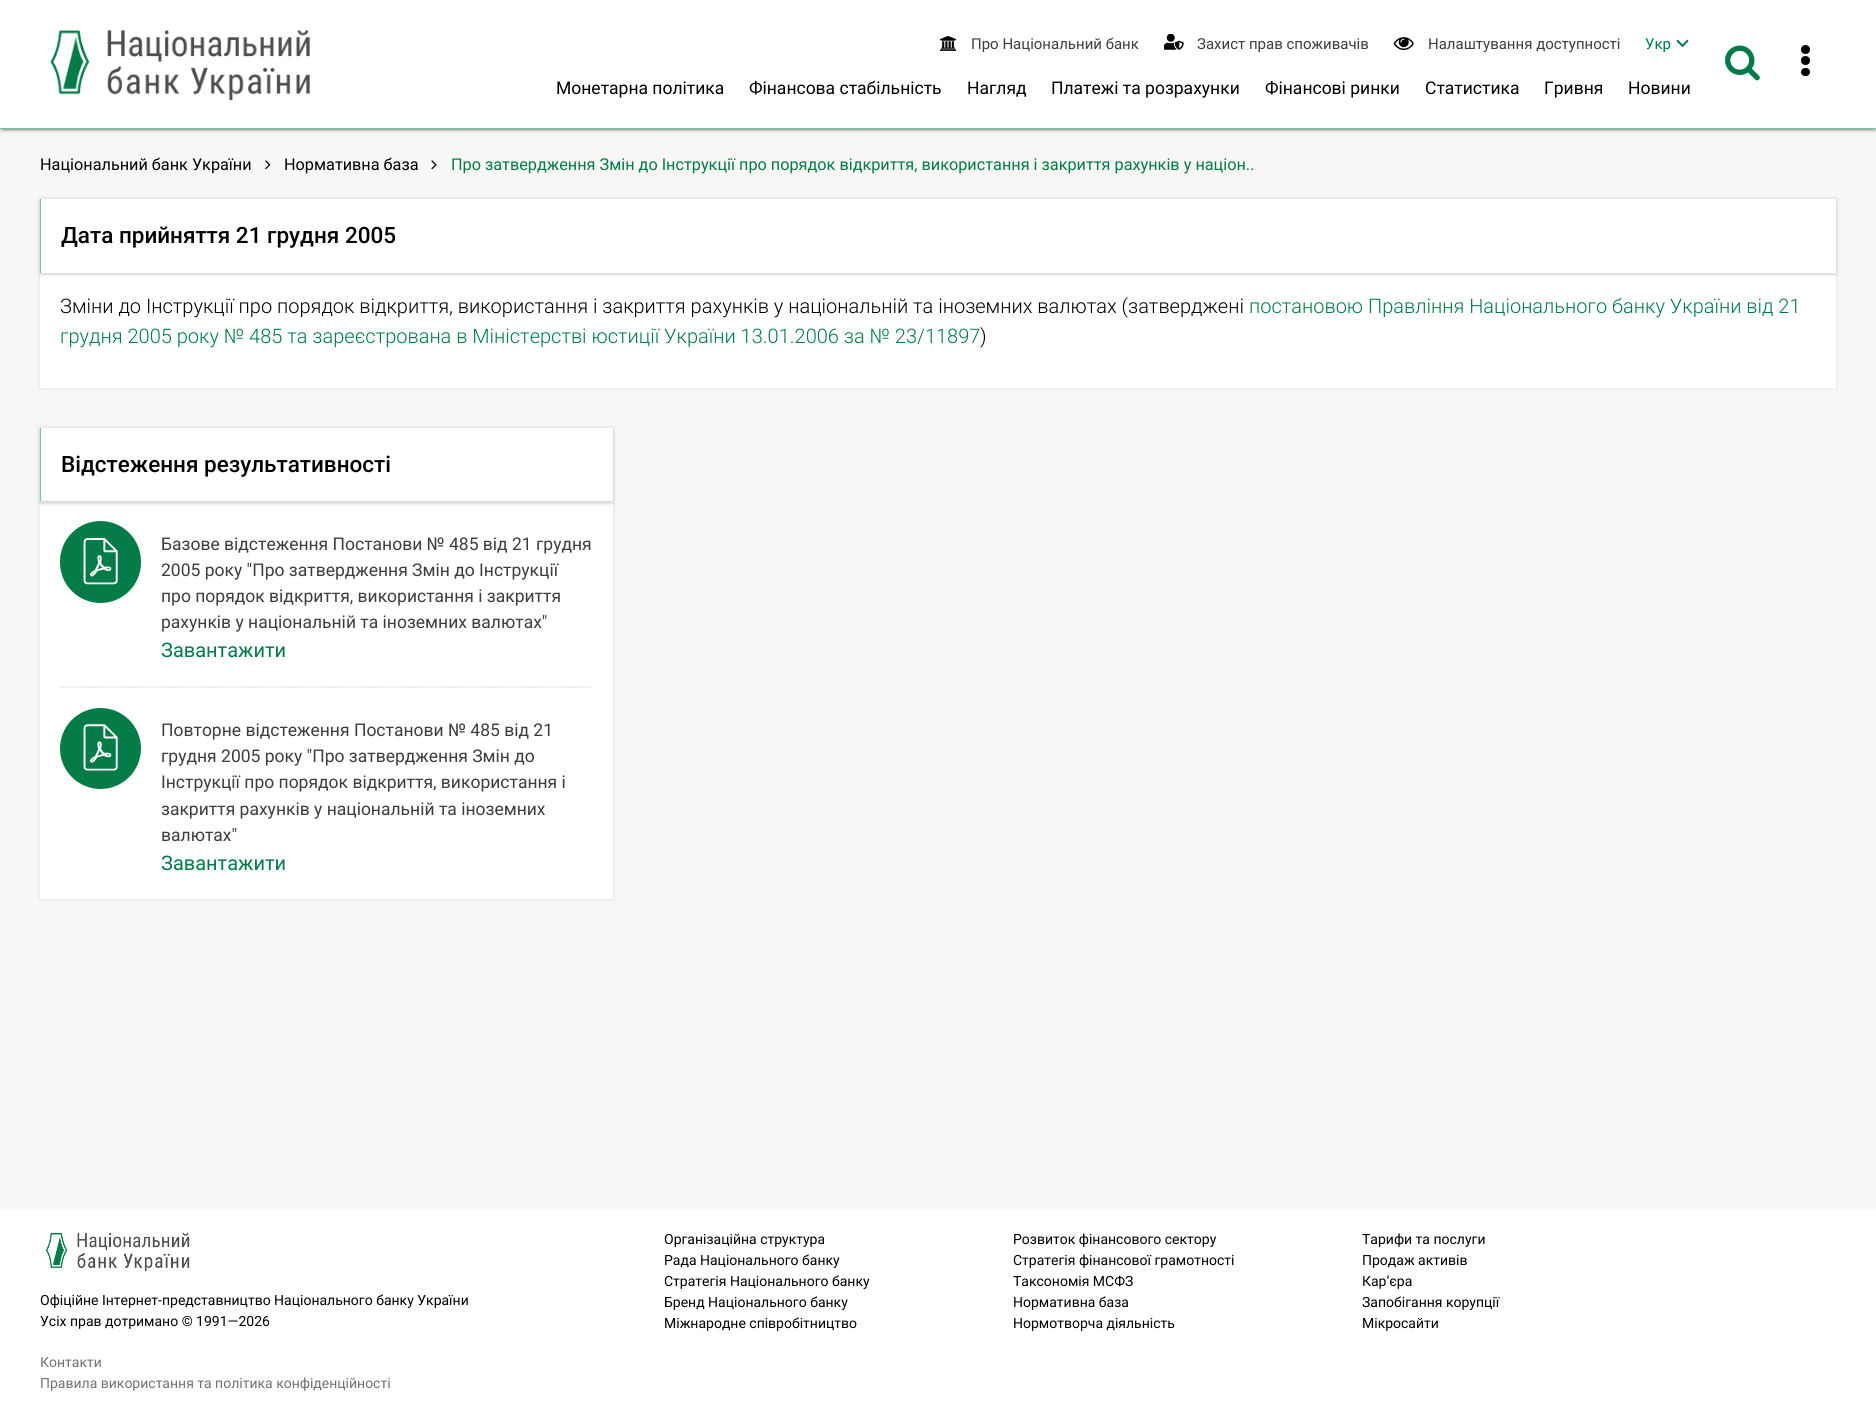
#include <cairo.h>
#include <math.h>
#include <stddef.h>


static void rgb(cairo_t *cr, int r, int g, int b)
{
	cairo_set_source_rgb(cr, r / 255.0, g / 255.0, b / 255.0);
}

static void face(cairo_t *cr, const char *family, double size, int italic, int bold)
{
	cairo_select_font_face(cr, family, italic ? CAIRO_FONT_SLANT_ITALIC : CAIRO_FONT_SLANT_NORMAL,
		bold ? CAIRO_FONT_WEIGHT_BOLD : CAIRO_FONT_WEIGHT_NORMAL);
	cairo_set_font_size(cr, size);
}

static void label(cairo_t *cr, double x, double y, const char *s)
{
	cairo_move_to(cr, x, y);
	cairo_show_text(cr, s);
}

static void rect(cairo_t *cr, double x, double y, double w, double h)
{
	cairo_rectangle(cr, x, y, w, h);
	cairo_fill(cr);
}

static void rrect(cairo_t *cr, double x, double y, double w, double h, double r)
{
	cairo_new_sub_path(cr);
	cairo_arc(cr, x + w - r, y + h - r, r, 0, M_PI / 2);
	cairo_arc(cr, x + r, y + h - r, r, M_PI / 2, M_PI);
	cairo_arc(cr, x + r, y + r, r, M_PI, 1.5 * M_PI);
	cairo_arc(cr, x + w - r, y + r, r, 1.5 * M_PI, 2 * M_PI);
	cairo_close_path(cr);
}

static void soft_shadow(cairo_t *cr, double x, double y, double w, double h, double r, double blur, double alpha)
{
	cairo_push_group_with_content(cr, CAIRO_CONTENT_ALPHA);
	cairo_set_operator(cr, CAIRO_OPERATOR_SOURCE);
	for (int i = 15; i >= -15 && fmin(w, h) + blur * i / 3 > 0; i -= 2) {
		double e = blur * i / 6;
		cairo_set_source_rgba(cr, 0, 0, 0, alpha * erfc((i - 1) / 8.5) / 2);
		rrect(cr, x - e, y - e, w + 2 * e, h + 2 * e, fmax(0, fmin(r + e + blur * .6, fmin(w, h) / 2 + e)));
		cairo_fill(cr);
	}
	cairo_pattern_t *soft = cairo_pop_group(cr);
	cairo_mask(cr, soft);
	cairo_pattern_destroy(soft);
}

static void image(cairo_t *cr, const char *path, double x, double y, double w, double h)
{
	cairo_surface_t *image = cairo_image_surface_create_from_png(path);
	cairo_save(cr);
	cairo_set_source_surface(cr, image, x, y);
	cairo_rectangle(cr, x, y, w, h);
	cairo_fill(cr);
	cairo_restore(cr);
	cairo_surface_destroy(image);
}

static void draw(cairo_t *cr) {
	rgb(cr, 249, 247, 245);
	cairo_paint(cr);
	rgb(cr, 0, 0, 0);
	soft_shadow(cr, 0, 1, 1876, 129, 0, 3, 0.12);
	soft_shadow(cr, 3, 6, 1871, 124, 0, 0.5, 0.2);
	soft_shadow(cr, 0, 3, 1876, 128, 0, 1, 0.14);
	rgb(cr, 255, 255, 255);
	rect(cr, 0, 0, 1876, 128);
	rgb(cr, 106, 203, 154);
	rect(cr, 0, 128, 1876, 1);
	image(cr, "image0.png", 50, 29, 260, 71);
	image(cr, "image1.png", 940, 36, 17, 15);
	face(cr, "Roboto", 15, 0, 0);
	rgb(cr, 61, 61, 61);
	label(cr, 971, 49, "Про Національний банк");
	image(cr, "image2.png", 1164, 34, 20, 16);
	label(cr, 1197, 49, "Захист прав споживачів");
	image(cr, "image3.png", 1393, 37, 21, 13);
	label(cr, 1428, 49, "Налаштування доступності");
	rgb(cr, 0, 123, 71);
	label(cr, 1645, 49, "Укр");
	image(cr, "image4.png", 1676, 39, 13, 9);
	face(cr, "Roboto", 17.5, 0, 0);
	rgb(cr, 0, 0, 0);
	label(cr, 556, 94, "Монетарна політика");
	label(cr, 749, 94, "Фінансова стабільність");
	label(cr, 967, 94, "Нагляд");
	label(cr, 1051, 94, "Платежі та розрахунки");
	label(cr, 1265, 94, "Фінансові ринки");
	label(cr, 1425, 94, "Статистика");
	label(cr, 1544, 94, "Гривня");
	label(cr, 1628, 94, "Новини");
	image(cr, "image5.png", 1725, 45, 35, 36);
	cairo_arc(cr, 1805.5, 49.5, 4.5, 0, 2 * M_PI);
	cairo_fill(cr);
	cairo_arc(cr, 1805.5, 60.5, 4.5, 0, 2 * M_PI);
	cairo_fill(cr);
	rrect(cr, 1801, 68, 9, 8, 4);
	cairo_fill(cr);
	face(cr, "Roboto", 16.25, 0, 0);
	label(cr, 40, 170, "Національний банк України");
	image(cr, "image6.png", 265, 160, 6, 10);
	label(cr, 284, 170, "Нормативна база");
	image(cr, "image7.png", 431, 160, 6, 10);
	rgb(cr, 0, 123, 71);
	label(cr, 451, 170, "Про затвердження Змін до Інструкції про порядок відкриття, використання і закриття рахунків у націон..");
	rgb(cr, 0, 0, 0);
	soft_shadow(cr, 40, 199, 1796, 189, 0, 2, 0.1);
	rgb(cr, 255, 255, 255);
	rect(cr, 40, 199, 1796, 189);
	cairo_save(cr);
	cairo_set_fill_rule(cr, CAIRO_FILL_RULE_EVEN_ODD);
	cairo_new_path(cr);
	cairo_move_to(cr, 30, 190);
	cairo_line_to(cr, 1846, 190);
	cairo_line_to(cr, 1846, 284);
	cairo_line_to(cr, 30, 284);
	cairo_close_path(cr);
	cairo_move_to(cr, 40, 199);
	cairo_line_to(cr, 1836, 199);
	cairo_line_to(cr, 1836, 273);
	cairo_line_to(cr, 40, 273);
	cairo_close_path(cr);
	cairo_clip(cr);
	rgb(cr, 0, 0, 0);
	soft_shadow(cr, 40, 200, 1796, 74, 0, 3, 0.08);
	cairo_restore(cr);
	cairo_save(cr);
	cairo_set_fill_rule(cr, CAIRO_FILL_RULE_EVEN_ODD);
	cairo_new_path(cr);
	cairo_move_to(cr, 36, 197);
	cairo_line_to(cr, 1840, 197);
	cairo_line_to(cr, 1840, 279);
	cairo_line_to(cr, 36, 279);
	cairo_close_path(cr);
	cairo_move_to(cr, 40, 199);
	cairo_line_to(cr, 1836, 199);
	cairo_line_to(cr, 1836, 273);
	cairo_line_to(cr, 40, 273);
	cairo_close_path(cr);
	cairo_clip(cr);
	rgb(cr, 0, 0, 0);
	soft_shadow(cr, 40, 201, 1796, 74, 0, 1, 0.1);
	cairo_restore(cr);
	rgb(cr, 106, 203, 154);
	rect(cr, 40, 199, 1, 74);
	face(cr, "Roboto Medium", 22.5, 0, 0);
	rgb(cr, 0, 0, 0);
	label(cr, 61, 243, "Дата прийняття 21 грудня 2005");
	face(cr, "Roboto Light", 20, 0, 0);
	label(cr, 60, 313, "Зміни до Інструкції про порядок відкриття, використання і закриття рахунків у національній та іноземних валютах (затверджені");
	rgb(cr, 0, 123, 71);
	label(cr, 1249, 313, "постановою Правління Національного банку України від 21");
	label(cr, 60, 343, "грудня 2005 року № 485 та зареєстрована в Міністерстві юстиції України 13.01.2006 за № 23/11897");
	rgb(cr, 0, 0, 0);
	label(cr, 980, 343, ")");
	rgb(cr, 0, 0, 0);
	soft_shadow(cr, 40, 428, 573, 471, 0, 2, 0.1);
	rgb(cr, 255, 255, 255);
	rect(cr, 40, 428, 573, 471);
	cairo_save(cr);
	cairo_set_fill_rule(cr, CAIRO_FILL_RULE_EVEN_ODD);
	cairo_new_path(cr);
	cairo_move_to(cr, 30, 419);
	cairo_line_to(cr, 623, 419);
	cairo_line_to(cr, 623, 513);
	cairo_line_to(cr, 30, 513);
	cairo_close_path(cr);
	cairo_move_to(cr, 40, 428);
	cairo_line_to(cr, 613, 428);
	cairo_line_to(cr, 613, 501);
	cairo_line_to(cr, 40, 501);
	cairo_close_path(cr);
	cairo_clip(cr);
	rgb(cr, 0, 0, 0);
	soft_shadow(cr, 40, 429, 573, 74, 0, 3, 0.08);
	cairo_restore(cr);
	cairo_save(cr);
	cairo_set_fill_rule(cr, CAIRO_FILL_RULE_EVEN_ODD);
	cairo_new_path(cr);
	cairo_move_to(cr, 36, 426);
	cairo_line_to(cr, 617, 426);
	cairo_line_to(cr, 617, 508);
	cairo_line_to(cr, 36, 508);
	cairo_close_path(cr);
	cairo_move_to(cr, 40, 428);
	cairo_line_to(cr, 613, 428);
	cairo_line_to(cr, 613, 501);
	cairo_line_to(cr, 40, 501);
	cairo_close_path(cr);
	cairo_clip(cr);
	rgb(cr, 0, 0, 0);
	soft_shadow(cr, 40, 430, 573, 74, 0, 1, 0.1);
	cairo_restore(cr);
	rgb(cr, 106, 203, 154);
	rect(cr, 40, 428, 1, 73);
	face(cr, "Roboto Medium", 22.5, 0, 0);
	rgb(cr, 0, 0, 0);
	label(cr, 61, 472, "Відстеження результативності");
	cairo_new_path(cr);
	cairo_move_to(cr, 60, 687);
	cairo_line_to(cr, 592.5, 687);
	rgb(cr, 215, 215, 215);
	cairo_set_line_width(cr, 1.2);
	cairo_set_dash(cr, (double[]){1.25, 1.25}, 2, 0);
	cairo_stroke(cr);
	rgb(cr, 5, 124, 72);
	rrect(cr, 60, 521, 81, 82, 40.5);
	cairo_fill(cr);
	image(cr, "image8.png", 83, 538, 35, 47);
	face(cr, "Roboto", 17.5, 0, 0);
	rgb(cr, 61, 61, 61);
	label(cr, 161, 550, "Базове відстеження Постанови № 485 від 21 грудня");
	label(cr, 161, 576, "2005 року \"Про затвердження Змін до Інструкції");
	label(cr, 161, 602, "про порядок відкриття, використання і закриття");
	label(cr, 161, 628, "рахунків у національній та іноземних валютах\"");
	face(cr, "Roboto", 20, 0, 0);
	rgb(cr, 0, 123, 71);
	label(cr, 161, 657, "Завантажити");
	rgb(cr, 5, 124, 72);
	cairo_new_path(cr);
	cairo_arc(cr, 100.5, 748.5, 40.5, 0, 2 * M_PI);
	cairo_fill(cr);
	image(cr, "image9.png", 83, 724, 35, 47);
	face(cr, "Roboto", 17.5, 0, 0);
	rgb(cr, 61, 61, 61);
	label(cr, 161, 736, "Повторне відстеження Постанови № 485 від 21");
	label(cr, 161, 762, "грудня 2005 року \"Про затвердження Змін до");
	label(cr, 161, 788, "Інструкції про порядок відкриття, використання і");
	label(cr, 161, 815, "закриття рахунків у національній та іноземних");
	label(cr, 161, 841, "валютах\"");
	face(cr, "Roboto", 20, 0, 0);
	rgb(cr, 0, 123, 71);
	label(cr, 161, 870, "Завантажити");
	rgb(cr, 255, 255, 255);
	rect(cr, 0, 1210, 1876, 204);
	face(cr, "Roboto", 14, 0, 0);
	rgb(cr, 0, 0, 0);
	label(cr, 664, 1244, "Організаційна структура");
	label(cr, 1013, 1244, "Розвиток фінансового сектору");
	label(cr, 1362, 1244, "Тарифи та послуги");
	label(cr, 664, 1265, "Рада Національного банку");
	label(cr, 1013, 1265, "Стратегія фінансової грамотності");
	label(cr, 1362, 1265, "Продаж активів");
	label(cr, 664, 1286, "Стратегія Національного банку");
	label(cr, 1013, 1286, "Таксономія МСФЗ");
	label(cr, 1362, 1286, "Кар’єра");
	label(cr, 664, 1307, "Бренд Національного банку");
	label(cr, 1013, 1307, "Нормативна база");
	label(cr, 1362, 1307, "Запобігання корупції");
	label(cr, 664, 1328, "Міжнародне співробітництво");
	label(cr, 1013, 1328, "Нормотворча діяльність");
	label(cr, 1362, 1328, "Мікросайти");
	image(cr, "image10.png", 45, 1232, 145, 40);
	label(cr, 40, 1305, "Офіційне Інтернет-представництво Національного банку України");
	label(cr, 40, 1326, "Усіх прав дотримано © 1991—2026");
	rgb(cr, 114, 114, 114);
	label(cr, 40, 1367, "Контакти");
	label(cr, 40, 1388, "Правила використання та політика конфіденційності");
}

int main(void) {
	cairo_surface_t *surface = cairo_image_surface_create(CAIRO_FORMAT_RGB24, 1876, 1414);
	cairo_t *cr = cairo_create(surface);
	cairo_font_options_t *options = cairo_font_options_create();
	cairo_font_options_set_hint_metrics(options, CAIRO_HINT_METRICS_OFF);
	cairo_font_options_set_hint_style(options, CAIRO_HINT_STYLE_NONE);
	cairo_set_font_options(cr, options);
	cairo_set_miter_limit(cr, 4);
	draw(cr);
	cairo_surface_write_to_png(surface, "render.png");
	cairo_font_options_destroy(options);
	cairo_destroy(cr);
	cairo_surface_destroy(surface);
	return 0;
}
